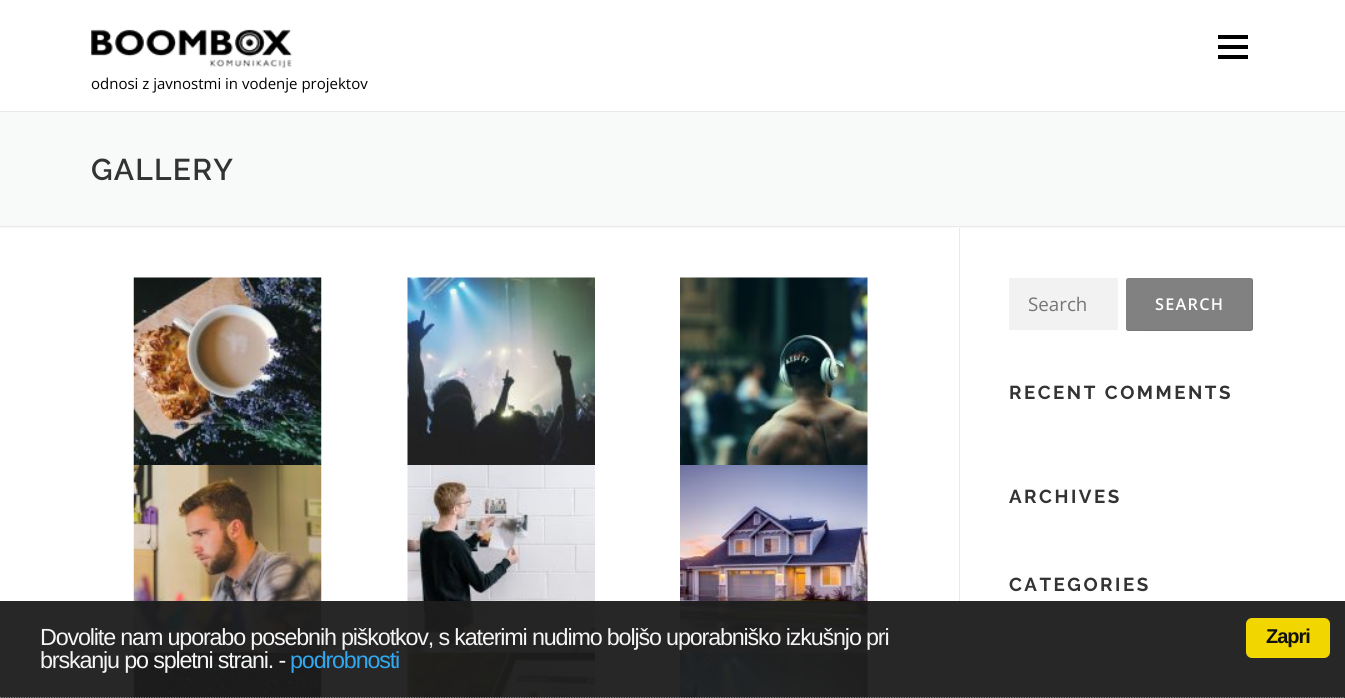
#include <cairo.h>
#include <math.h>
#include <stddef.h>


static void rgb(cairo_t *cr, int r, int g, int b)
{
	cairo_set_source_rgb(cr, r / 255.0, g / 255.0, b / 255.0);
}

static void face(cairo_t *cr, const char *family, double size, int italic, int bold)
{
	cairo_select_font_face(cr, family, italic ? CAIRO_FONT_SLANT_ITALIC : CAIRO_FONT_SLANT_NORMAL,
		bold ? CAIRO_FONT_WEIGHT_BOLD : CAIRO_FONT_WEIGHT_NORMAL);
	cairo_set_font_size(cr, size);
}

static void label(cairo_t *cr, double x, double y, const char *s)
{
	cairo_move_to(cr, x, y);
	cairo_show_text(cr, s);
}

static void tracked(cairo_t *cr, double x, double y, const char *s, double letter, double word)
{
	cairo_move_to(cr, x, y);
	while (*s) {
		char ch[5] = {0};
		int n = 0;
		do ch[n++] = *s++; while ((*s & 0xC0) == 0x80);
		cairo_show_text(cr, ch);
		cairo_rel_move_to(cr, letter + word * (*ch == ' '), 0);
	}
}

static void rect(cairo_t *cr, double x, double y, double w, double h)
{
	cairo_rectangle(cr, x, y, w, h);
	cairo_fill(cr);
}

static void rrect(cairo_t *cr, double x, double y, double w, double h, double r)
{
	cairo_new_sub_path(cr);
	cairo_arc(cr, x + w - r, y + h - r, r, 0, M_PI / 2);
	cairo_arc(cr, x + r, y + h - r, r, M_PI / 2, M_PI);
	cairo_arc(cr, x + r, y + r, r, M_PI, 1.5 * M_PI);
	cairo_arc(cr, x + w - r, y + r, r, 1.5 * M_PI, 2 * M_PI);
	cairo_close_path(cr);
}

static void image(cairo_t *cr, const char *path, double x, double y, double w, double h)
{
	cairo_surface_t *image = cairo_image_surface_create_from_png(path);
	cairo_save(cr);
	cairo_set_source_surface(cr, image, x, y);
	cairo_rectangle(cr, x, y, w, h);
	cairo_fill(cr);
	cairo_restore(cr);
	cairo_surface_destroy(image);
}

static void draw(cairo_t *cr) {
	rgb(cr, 255, 255, 255);
	cairo_paint(cr);
	rgb(cr, 0, 0, 0);
	rect(cr, 1218, 45, 30, 4);
	rect(cr, 1218, 35, 30, 4);
	rect(cr, 1218, 55, 30, 4);
	image(cr, "image0.png", 91, 29, 201, 39);
	face(cr, "Open Sans", 15, 0, 0);
	label(cr, 91, 89, "odnosi z javnostmi in vodenje projektov");
	rgb(cr, 248, 249, 249);
	rect(cr, 0, 112, 1345, 116);
	rgb(cr, 233, 233, 233);
	rect(cr, 0, 111, 1345, 1);
	rect(cr, 0, 226, 1345, 1);
	face(cr, "Raleway SemiBold", 30, 0, 0);
	rgb(cr, 51, 51, 51);
	tracked(cr, 91, 180, "GALLERY", 1.25, 0);
	rgb(cr, 233, 233, 233);
	rect(cr, 959, 228, 1, 470);
	image(cr, "image1.png", 133, 277, 189, 188);
	image(cr, "image2.png", 407, 277, 188, 188);
	image(cr, "image3.png", 680, 277, 188, 188);
	image(cr, "image4.png", 133, 465, 189, 188);
	image(cr, "image5.png", 407, 465, 188, 188);
	image(cr, "image6.png", 680, 465, 188, 188);
	image(cr, "image7.png", 133, 652, 189, 46);
	image(cr, "image8.png", 407, 652, 188, 46);
	image(cr, "image9.png", 680, 652, 188, 46);
	rgb(cr, 242, 242, 242);
	rect(cr, 1009, 278, 109, 52);
	face(cr, "Open Sans", 18.75, 0, 0);
	rgb(cr, 117, 117, 117);
	label(cr, 1028, 311, "Search");
	rgb(cr, 129, 129, 129);
	rrect(cr, 1126, 278, 127, 53, 2.5);
	cairo_fill(cr);
	cairo_set_source_rgba(cr, 0, 0, 0, 0.1);
	cairo_new_path(cr);
	cairo_move_to(cr, 1126, 328);
	cairo_curve_to(cr, 1126, 330, 1127, 331, 1128, 331);
	cairo_line_to(cr, 1250, 331);
	cairo_curve_to(cr, 1252, 331, 1253, 330, 1253, 328);
	cairo_line_to(cr, 1253, 280);
	cairo_curve_to(cr, 1253, 280, 1253, 279, 1252, 278);
	cairo_line_to(cr, 1252, 320);
	cairo_curve_to(cr, 1252, 324, 1253, 330, 1250, 330);
	cairo_line_to(cr, 1149, 330);
	cairo_curve_to(cr, 1145, 330, 1126, 332, 1126, 328);
	cairo_close_path(cr);
	cairo_fill(cr);
	face(cr, "Open Sans SemiBold", 16.25, 0, 0);
	rgb(cr, 255, 255, 255);
	tracked(cr, 1155, 310, "SEARCH", 1.25, 0);
	face(cr, "Raleway", 18.75, 0, 1);
	rgb(cr, 51, 51, 51);
	tracked(cr, 1009, 399, "RECENT COMMENTS", 2.5, 0);
	tracked(cr, 1009, 503, "ARCHIVES", 2.5, 0);
	tracked(cr, 1009, 591, "CATEGORIES", 2.5, 0);
	cairo_set_source_rgba(cr, 0.114, 0.114, 0.114, 0.95);
	rect(cr, 0, 601, 1345, 97);
	cairo_new_path(cr);
	cairo_move_to(cr, 0, 698);
	cairo_line_to(cr, 1345, 698);
	rgb(cr, 204, 204, 204);
	cairo_set_line_width(cr, 1.2);
	cairo_set_dash(cr, (double[]){1.25, 1.25}, 2, 0);
	cairo_stroke(cr);
	face(cr, "Liberation Sans", 23.35, 0, 0);
	rgb(cr, 245, 245, 245);
	tracked(cr, 40, 645, "Dovolite nam uporabo posebnih piškotkov, s katerimi nudimo boljšo uporabniško izkušnjo pri", -1.17, 0);
	tracked(cr, 40, 668, "brskanju po spletni strani. -", -1.17, 0);
	rgb(cr, 49, 168, 240);
	tracked(cr, 290, 668, "podrobnosti", -1.17, 0);
	rgb(cr, 241, 214, 0);
	rrect(cr, 1246, 618, 84, 40, 6);
	cairo_fill(cr);
	face(cr, "Liberation Sans", 20, 0, 1);
	rgb(cr, 17, 17, 17);
	tracked(cr, 1266, 643, "Zapri", -1, 0);
}

int main(void) {
	cairo_surface_t *surface = cairo_image_surface_create(CAIRO_FORMAT_RGB24, 1345, 698);
	cairo_t *cr = cairo_create(surface);
	cairo_font_options_t *options = cairo_font_options_create();
	cairo_font_options_set_hint_metrics(options, CAIRO_HINT_METRICS_OFF);
	cairo_font_options_set_hint_style(options, CAIRO_HINT_STYLE_NONE);
	cairo_set_font_options(cr, options);
	cairo_set_miter_limit(cr, 4);
	draw(cr);
	cairo_surface_write_to_png(surface, "render.png");
	cairo_font_options_destroy(options);
	cairo_destroy(cr);
	cairo_surface_destroy(surface);
	return 0;
}
